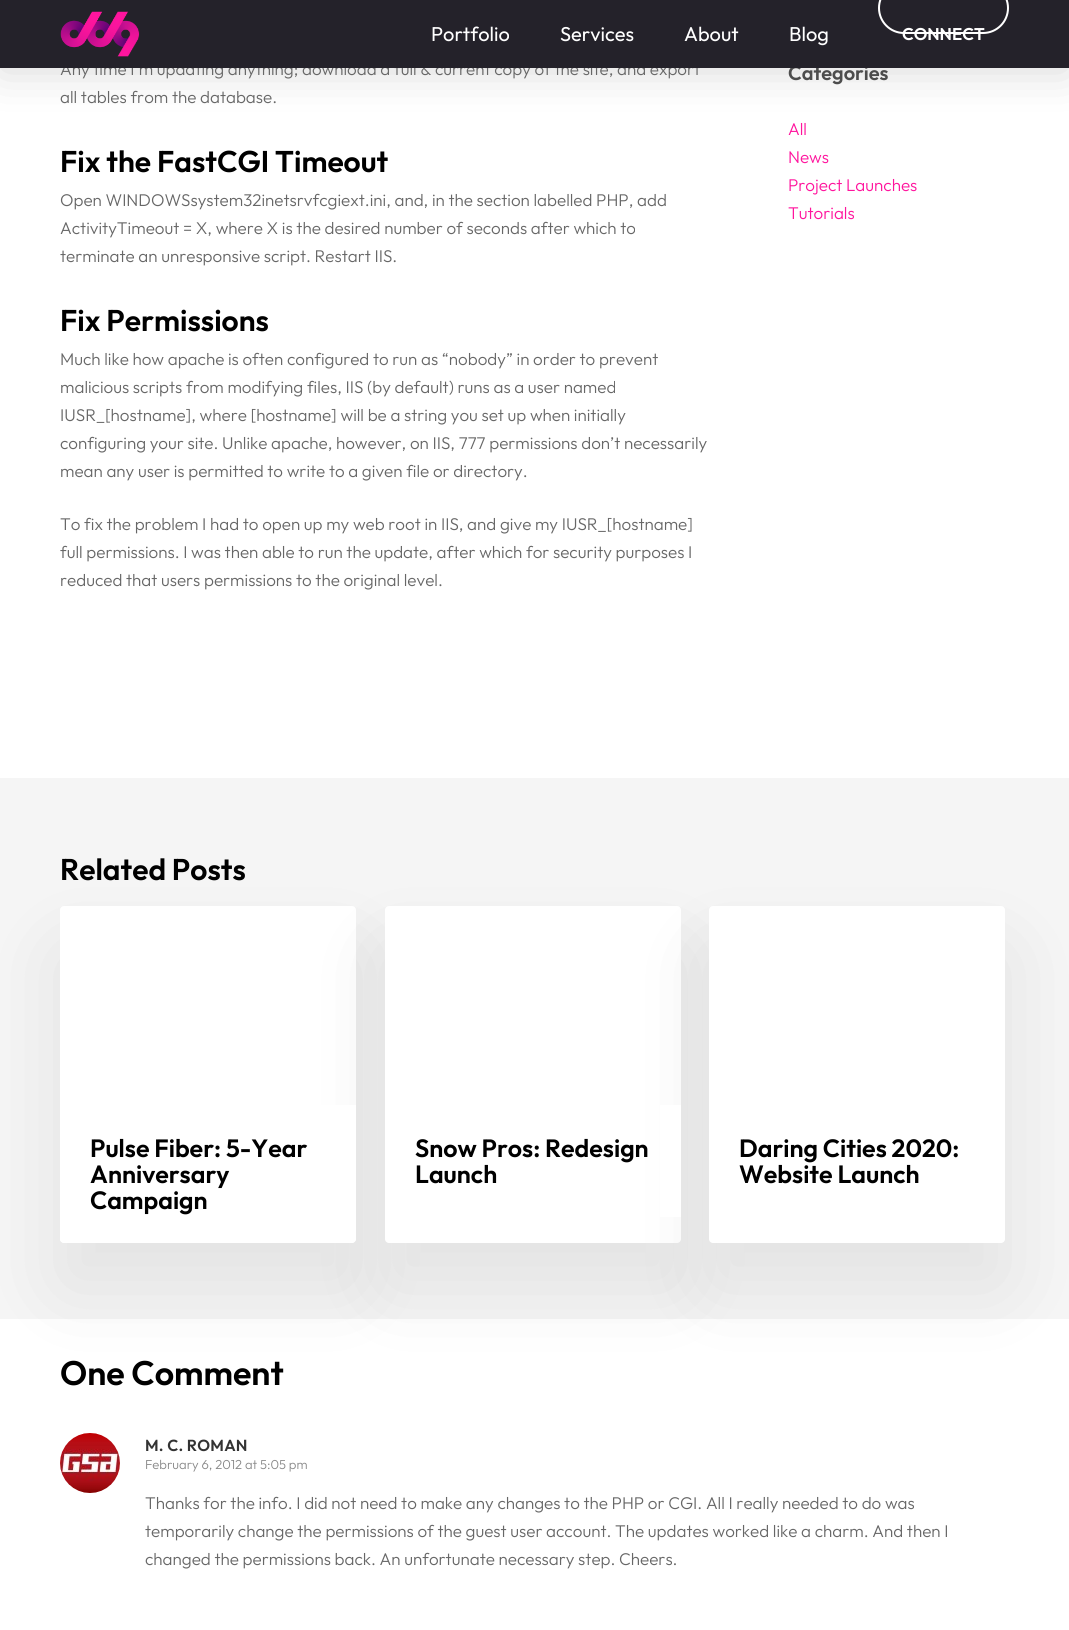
#include <cairo.h>
#include <math.h>
#include <stddef.h>


static void rgb(cairo_t *cr, int r, int g, int b)
{
	cairo_set_source_rgb(cr, r / 255.0, g / 255.0, b / 255.0);
}

static void face(cairo_t *cr, const char *family, double size, int italic, int bold)
{
	cairo_select_font_face(cr, family, italic ? CAIRO_FONT_SLANT_ITALIC : CAIRO_FONT_SLANT_NORMAL,
		bold ? CAIRO_FONT_WEIGHT_BOLD : CAIRO_FONT_WEIGHT_NORMAL);
	cairo_set_font_size(cr, size);
}

static void label(cairo_t *cr, double x, double y, const char *s)
{
	cairo_move_to(cr, x, y);
	cairo_show_text(cr, s);
}

static void tracked(cairo_t *cr, double x, double y, const char *s, double letter, double word)
{
	cairo_move_to(cr, x, y);
	while (*s) {
		char ch[5] = {0};
		int n = 0;
		do ch[n++] = *s++; while ((*s & 0xC0) == 0x80);
		cairo_show_text(cr, ch);
		cairo_rel_move_to(cr, letter + word * (*ch == ' '), 0);
	}
}

static void rect(cairo_t *cr, double x, double y, double w, double h)
{
	cairo_rectangle(cr, x, y, w, h);
	cairo_fill(cr);
}

static void rrect(cairo_t *cr, double x, double y, double w, double h, double r)
{
	cairo_new_sub_path(cr);
	cairo_arc(cr, x + w - r, y + h - r, r, 0, M_PI / 2);
	cairo_arc(cr, x + r, y + h - r, r, M_PI / 2, M_PI);
	cairo_arc(cr, x + r, y + r, r, M_PI, 1.5 * M_PI);
	cairo_arc(cr, x + w - r, y + r, r, 1.5 * M_PI, 2 * M_PI);
	cairo_close_path(cr);
}

static void soft_shadow(cairo_t *cr, double x, double y, double w, double h, double r, double blur, double alpha)
{
	cairo_push_group_with_content(cr, CAIRO_CONTENT_ALPHA);
	cairo_set_operator(cr, CAIRO_OPERATOR_SOURCE);
	for (int i = 15; i >= -15 && fmin(w, h) + blur * i / 3 > 0; i -= 2) {
		double e = blur * i / 6;
		cairo_set_source_rgba(cr, 0, 0, 0, alpha * erfc((i - 1) / 8.5) / 2);
		rrect(cr, x - e, y - e, w + 2 * e, h + 2 * e, fmax(0, fmin(r + e + blur * .6, fmin(w, h) / 2 + e)));
		cairo_fill(cr);
	}
	cairo_pattern_t *soft = cairo_pop_group(cr);
	cairo_mask(cr, soft);
	cairo_pattern_destroy(soft);
}

static void image(cairo_t *cr, const char *path, double x, double y, double w, double h)
{
	cairo_surface_t *image = cairo_image_surface_create_from_png(path);
	cairo_save(cr);
	cairo_set_source_surface(cr, image, x, y);
	cairo_rectangle(cr, x, y, w, h);
	cairo_fill(cr);
	cairo_restore(cr);
	cairo_surface_destroy(image);
}

static void draw(cairo_t *cr) {
	rgb(cr, 255, 255, 255);
	cairo_paint(cr);
	rgb(cr, 0, 0, 0);
	soft_shadow(cr, 0, 3, 1069, 68, 0, 22.5, 0.15);
	face(cr, "Outfit Light", 17, 0, 0);
	rgb(cr, 103, 103, 103);
	label(cr, 60, 75, "Any time I’m updating anything; download a full & current copy of the site, and export");
	face(cr, "Outfit SemiBold", 20, 0, 0);
	rgb(cr, 77, 77, 77);
	label(cr, 788, 80, "Categories");
	rgb(cr, 36, 34, 42);
	rect(cr, 0, 0, 1069, 68);
	image(cr, "image0.png", 60, 11, 80, 46);
	face(cr, "Outfit", 20, 0, 0);
	rgb(cr, 255, 255, 255);
	label(cr, 431, 41, "Portfolio");
	label(cr, 560, 41, "Services");
	label(cr, 684, 41, "About");
	label(cr, 789, 41, "Blog");
	rrect(cr, 879, -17, 129, 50, 25);
	cairo_stroke(cr);
	face(cr, "Outfit SemiBold", 17, 0, 0);
	label(cr, 902, 40, "CONNECT");
	rgb(cr, 245, 245, 245);
	rect(cr, 0, 778, 1069, 541);
	face(cr, "Outfit Light", 17, 0, 0);
	rgb(cr, 103, 103, 103);
	label(cr, 60, 103, "all tables from the database.");
	face(cr, "Outfit SemiBold", 30, 0, 0);
	rgb(cr, 0, 0, 0);
	label(cr, 60, 172, "Fix the FastCGI Timeout");
	face(cr, "Outfit Light", 17, 0, 0);
	rgb(cr, 103, 103, 103);
	label(cr, 60, 206, "Open WINDOWSsystem32inetsrvfcgiext.ini, and, in the section labelled PHP, add");
	label(cr, 60, 234, "ActivityTimeout = X, where X is the desired number of seconds after which to");
	label(cr, 60, 262, "terminate an unresponsive script. Restart IIS.");
	face(cr, "Outfit SemiBold", 30, 0, 0);
	rgb(cr, 0, 0, 0);
	label(cr, 60, 331, "Fix Permissions");
	face(cr, "Outfit Light", 17, 0, 0);
	rgb(cr, 103, 103, 103);
	label(cr, 60, 365, "Much like how apache is often configured to run as “nobody” in order to prevent");
	label(cr, 60, 393, "malicious scripts from modifying files, IIS (by default) runs as a user named");
	label(cr, 60, 421, "IUSR_[hostname], where [hostname] will be a string you set up when initially");
	label(cr, 60, 449, "configuring your site. Unlike apache, however, on IIS, 777 permissions don’t necessarily");
	label(cr, 60, 477, "mean any user is permitted to write to a given file or directory.");
	label(cr, 60, 530, "To fix the problem I had to open up my web root in IIS, and give my IUSR_[hostname]");
	label(cr, 60, 558, "full permissions. I was then able to run the update, after which for security purposes I");
	label(cr, 60, 586, "reduced that users permissions to the original level.");
	rgb(cr, 255, 20, 157);
	label(cr, 788, 135, "All");
	label(cr, 788, 163, "News");
	label(cr, 788, 191, "Project Launches");
	label(cr, 788, 219, "Tutorials");
	face(cr, "Outfit SemiBold", 30, 0, 0);
	rgb(cr, 0, 0, 0);
	label(cr, 60, 880, "Related Posts");
	rgb(cr, 0, 0, 0);
	soft_shadow(cr, 60, 951, 296, 337, 4, 42.5, 0.08);
	rgb(cr, 255, 255, 255);
	rrect(cr, 60, 906, 296, 337, 4);
	cairo_fill(cr);
	rgb(cr, 0, 0, 0);
	soft_shadow(cr, 385, 951, 296, 337, 4, 42.5, 0.08);
	rgb(cr, 255, 255, 255);
	cairo_new_path(cr);
	cairo_move_to(cr, 60, 1105);
	cairo_line_to(cr, 356, 1105);
	cairo_line_to(cr, 356, 1239);
	cairo_curve_to(cr, 356, 1241, 354, 1243, 352, 1243);
	cairo_line_to(cr, 64, 1243);
	cairo_curve_to(cr, 62, 1243, 60, 1241, 60, 1239);
	cairo_close_path(cr);
	cairo_fill(cr);
	face(cr, "Outfit SemiBold", 25, 0, 0);
	rgb(cr, 0, 0, 0);
	label(cr, 90, 1157, "Pulse Fiber: 5-Year");
	label(cr, 90, 1183, "Anniversary");
	label(cr, 90, 1209, "Campaign");
	rgb(cr, 255, 255, 255);
	rrect(cr, 385, 906, 296, 337, 4);
	cairo_fill(cr);
	rgb(cr, 0, 0, 0);
	soft_shadow(cr, 709, 951, 296, 337, 4, 42.5, 0.08);
	rgb(cr, 255, 255, 255);
	rect(cr, 660, 1105, 21, 112);
	rgb(cr, 0, 0, 0);
	label(cr, 415, 1157, "Snow Pros: Redesign");
	label(cr, 415, 1183, "Launch");
	rgb(cr, 255, 255, 255);
	rrect(cr, 709, 906, 296, 337, 4);
	cairo_fill(cr);
	rgb(cr, 0, 0, 0);
	label(cr, 739, 1157, "Daring Cities 2020:");
	label(cr, 739, 1183, "Website Launch");
	face(cr, "Outfit SemiBold", 34, 0, 0);
	label(cr, 60, 1385, "One Comment");
	image(cr, "image1.png", 60, 1433, 60, 60);
	face(cr, "Outfit SemiBold", 16, 0, 0);
	rgb(cr, 51, 51, 51);
	tracked(cr, 145, 1451, "M. C. ROMAN", 0.25, 0);
	face(cr, "Outfit Light", 13, 0, 0);
	rgb(cr, 136, 136, 136);
	label(cr, 145, 1469, "February 6, 2012 at 5:05 pm");
	face(cr, "Outfit Light", 17, 0, 0);
	rgb(cr, 103, 103, 103);
	label(cr, 145, 1509, "Thanks for the info. I did not need to make any changes to the PHP or CGI. All I really needed to do was");
	label(cr, 145, 1537, "temporarily change the permissions of the guest user account. The updates worked like a charm. And then I");
	label(cr, 145, 1565, "changed the permissions back. An unfortunate necessary step. Cheers.");
}

int main(void) {
	cairo_surface_t *surface = cairo_image_surface_create(CAIRO_FORMAT_RGB24, 1069, 1630);
	cairo_t *cr = cairo_create(surface);
	cairo_font_options_t *options = cairo_font_options_create();
	cairo_font_options_set_hint_metrics(options, CAIRO_HINT_METRICS_OFF);
	cairo_font_options_set_hint_style(options, CAIRO_HINT_STYLE_NONE);
	cairo_set_font_options(cr, options);
	cairo_set_miter_limit(cr, 4);
	draw(cr);
	cairo_surface_write_to_png(surface, "render.png");
	cairo_font_options_destroy(options);
	cairo_destroy(cr);
	cairo_surface_destroy(surface);
	return 0;
}
